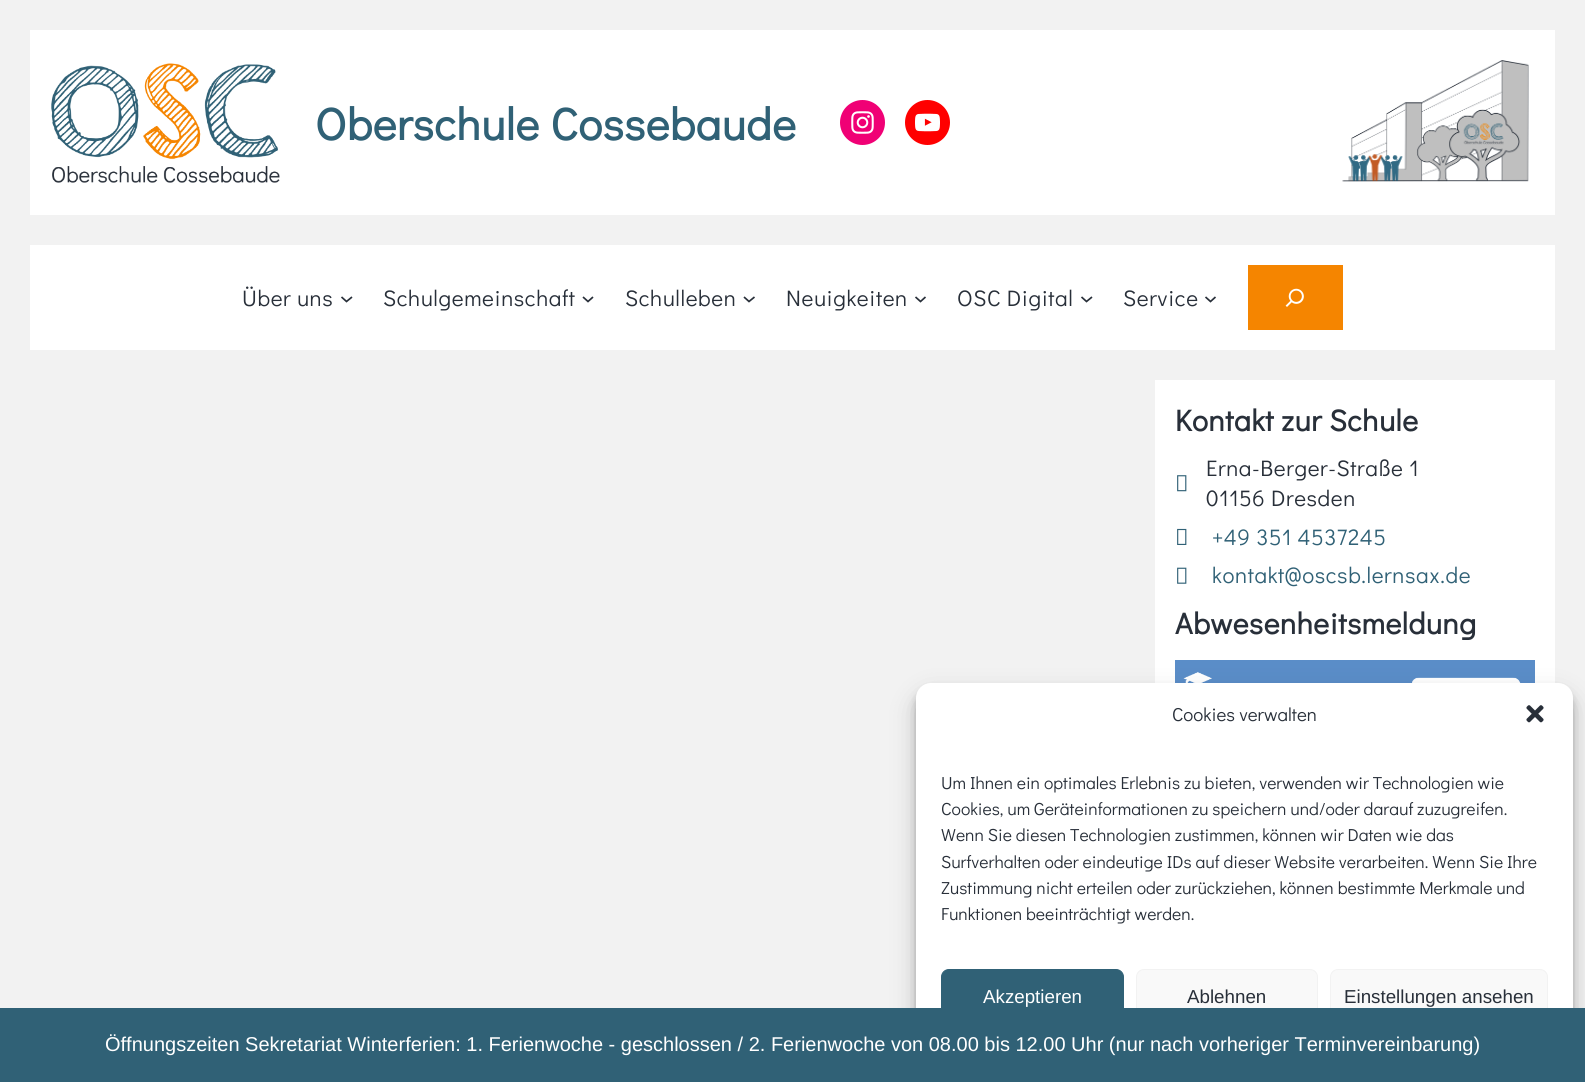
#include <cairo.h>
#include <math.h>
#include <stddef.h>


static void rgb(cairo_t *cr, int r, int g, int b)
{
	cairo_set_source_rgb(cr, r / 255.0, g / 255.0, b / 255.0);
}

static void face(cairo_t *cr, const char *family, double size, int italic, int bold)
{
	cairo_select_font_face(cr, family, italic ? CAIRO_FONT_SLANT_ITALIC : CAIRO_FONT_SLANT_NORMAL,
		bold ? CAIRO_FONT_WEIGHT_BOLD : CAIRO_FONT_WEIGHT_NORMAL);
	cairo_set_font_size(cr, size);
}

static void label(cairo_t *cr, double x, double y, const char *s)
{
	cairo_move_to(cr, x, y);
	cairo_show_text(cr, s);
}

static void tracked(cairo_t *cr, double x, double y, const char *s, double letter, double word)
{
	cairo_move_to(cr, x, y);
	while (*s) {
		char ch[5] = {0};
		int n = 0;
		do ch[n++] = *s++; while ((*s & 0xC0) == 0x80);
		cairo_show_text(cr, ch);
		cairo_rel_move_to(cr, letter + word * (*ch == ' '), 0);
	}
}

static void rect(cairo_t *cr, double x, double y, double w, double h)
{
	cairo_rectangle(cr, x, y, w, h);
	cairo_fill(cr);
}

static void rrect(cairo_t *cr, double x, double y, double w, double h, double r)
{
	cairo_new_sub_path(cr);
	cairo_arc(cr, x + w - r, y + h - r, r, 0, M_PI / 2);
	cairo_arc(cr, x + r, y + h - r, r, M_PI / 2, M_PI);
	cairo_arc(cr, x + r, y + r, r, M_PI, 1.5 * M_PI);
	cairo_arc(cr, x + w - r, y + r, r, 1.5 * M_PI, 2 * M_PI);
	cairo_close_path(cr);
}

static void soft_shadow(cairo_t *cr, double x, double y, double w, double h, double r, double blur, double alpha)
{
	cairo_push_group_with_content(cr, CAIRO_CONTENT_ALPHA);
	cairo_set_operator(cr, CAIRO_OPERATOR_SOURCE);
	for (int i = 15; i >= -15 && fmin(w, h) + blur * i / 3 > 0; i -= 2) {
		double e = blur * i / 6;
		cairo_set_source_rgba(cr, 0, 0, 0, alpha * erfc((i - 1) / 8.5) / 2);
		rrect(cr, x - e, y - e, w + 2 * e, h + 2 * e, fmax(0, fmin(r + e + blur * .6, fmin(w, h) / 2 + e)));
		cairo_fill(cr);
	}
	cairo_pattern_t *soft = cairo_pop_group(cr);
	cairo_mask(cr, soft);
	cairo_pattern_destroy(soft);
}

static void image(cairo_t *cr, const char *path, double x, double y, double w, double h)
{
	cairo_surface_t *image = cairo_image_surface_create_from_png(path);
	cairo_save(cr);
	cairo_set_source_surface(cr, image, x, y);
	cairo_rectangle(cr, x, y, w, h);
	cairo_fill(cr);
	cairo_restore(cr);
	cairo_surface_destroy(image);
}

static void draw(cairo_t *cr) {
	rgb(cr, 242, 242, 242);
	cairo_paint(cr);
	rgb(cr, 255, 255, 255);
	rect(cr, 30, 30, 1525, 185);
	image(cr, "image0.png", 51, 63, 229, 120);
	face(cr, "Didact Gothic", 45, 0, 1);
	rgb(cr, 48, 97, 118);
	tracked(cr, 315, 140, "Oberschule Cossebaude", 0.6, 0);
	rgb(cr, 240, 0, 117);
	cairo_new_path(cr);
	cairo_arc(cr, 862.5, 122.5, 22.5, 0, 2 * M_PI);
	cairo_fill(cr);
	image(cr, "image1.png", 851, 111, 23, 23);
	rgb(cr, 255, 0, 0);
	cairo_arc(cr, 927.5, 122.5, 22.5, 0, 2 * M_PI);
	cairo_fill(cr);
	image(cr, "image2.png", 915, 113, 25, 19);
	image(cr, "image3.png", 1342, 60, 187, 122);
	rgb(cr, 255, 255, 255);
	rect(cr, 30, 245, 1525, 105);
	face(cr, "Didact Gothic", 22.5, 0, 0);
	rgb(cr, 40, 47, 57);
	tracked(cr, 242, 306, "Über uns", 0.6, 0);
	cairo_new_path(cr);
	cairo_move_to(cr, 341.5, 297);
	cairo_line_to(cr, 346.5, 301.5);
	cairo_line_to(cr, 352, 297);
	cairo_set_line_width(cr, 1.7);
	cairo_stroke(cr);
	tracked(cr, 383, 306, "Schulgemeinschaft", 0.6, 0);
	cairo_new_path(cr);
	cairo_move_to(cr, 583, 297);
	cairo_line_to(cr, 588, 301.5);
	cairo_line_to(cr, 593, 297);
	cairo_stroke(cr);
	tracked(cr, 625, 306, "Schulleben", 0.6, 0);
	cairo_new_path(cr);
	cairo_move_to(cr, 744, 297);
	cairo_line_to(cr, 749, 301.5);
	cairo_line_to(cr, 754.5, 297);
	cairo_stroke(cr);
	tracked(cr, 786, 306, "Neuigkeiten", 0.6, 0);
	cairo_new_path(cr);
	cairo_move_to(cr, 915.5, 297);
	cairo_line_to(cr, 920.5, 301.5);
	cairo_line_to(cr, 925.5, 297);
	cairo_stroke(cr);
	tracked(cr, 957, 306, "OSC Digital", 0.6, 0);
	cairo_new_path(cr);
	cairo_move_to(cr, 1081.5, 297);
	cairo_line_to(cr, 1086.5, 301.5);
	cairo_line_to(cr, 1092, 297);
	cairo_stroke(cr);
	tracked(cr, 1123, 306, "Service", 0.6, 0);
	cairo_new_path(cr);
	cairo_move_to(cr, 1205.5, 297);
	cairo_line_to(cr, 1210.5, 301.5);
	cairo_line_to(cr, 1215.5, 297);
	cairo_stroke(cr);
	rgb(cr, 245, 133, 0);
	rect(cr, 1248, 265, 95, 65);
	image(cr, "image4.png", 1285, 288, 19, 19);
	rgb(cr, 255, 255, 255);
	rect(cr, 1155, 380, 400, 303);
	face(cr, "Didact Gothic", 30, 0, 1);
	rgb(cr, 40, 47, 57);
	tracked(cr, 1175, 431, "Kontakt zur Schule", 0.6, 0);
	image(cr, "image5.png", 1177, 475, 10, 17);
	face(cr, "Didact Gothic", 22.5, 0, 0);
	tracked(cr, 1206, 476, "Erna-Berger-Straße 1", 0.6, 0);
	tracked(cr, 1206, 506, "01156 Dresden", 0.6, 0);
	image(cr, "image6.png", 1177, 528, 10, 17);
	rgb(cr, 48, 97, 118);
	tracked(cr, 1212, 545, "+49 351 4537245", 0.6, 0);
	image(cr, "image7.png", 1177, 567, 10, 17);
	tracked(cr, 1212, 583, "kontakt@oscsb.lernsax.de", 0.6, 0);
	face(cr, "Didact Gothic", 30, 0, 1);
	rgb(cr, 40, 47, 57);
	tracked(cr, 1175, 634, "Abwesenheitsmeldung", 0.6, 0);
	image(cr, "image8.png", 1175, 660, 360, 23);
	rgb(cr, 0, 0, 0);
	soft_shadow(cr, 916, 690, 657, 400, 15, 4, 0.23);
	soft_shadow(cr, 916, 695, 657, 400, 15, 12.5, 0.19);
	rgb(cr, 255, 255, 255);
	rrect(cr, 916, 683, 657, 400, 15);
	cairo_fill(cr);
	face(cr, "Didact Gothic", 18.75, 0, 0);
	rgb(cr, 40, 47, 57);
	label(cr, 1172, 721, "Cookies verwalten");
	image(cr, "image9.png", 1526, 705, 18, 18);
	face(cr, "Didact Gothic", 17.5, 0, 0);
	label(cr, 941, 789, "Um Ihnen ein optimales Erlebnis zu bieten, verwenden wir Technologien wie");
	label(cr, 941, 815, "Cookies, um Geräteinformationen zu speichern und/oder darauf zuzugreifen.");
	label(cr, 941, 841, "Wenn Sie diesen Technologien zustimmen, können wir Daten wie das");
	label(cr, 941, 868, "Surfverhalten oder eindeutige IDs auf dieser Website verarbeiten. Wenn Sie Ihre");
	label(cr, 941, 894, "Zustimmung nicht erteilen oder zurückziehen, können bestimmte Merkmale und");
	label(cr, 941, 920, "Funktionen beeinträchtigt werden.");
	rgb(cr, 48, 97, 118);
	rrect(cr, 941.5, 969.5, 182, 55, 7.5);
	cairo_fill_preserve(cr);
	cairo_set_line_width(cr, 1);
	cairo_stroke(cr);
	face(cr, "Liberation Sans", 18.75, 0, 0);
	rgb(cr, 255, 255, 255);
	label(cr, 983, 1003, "Akzeptieren");
	rgb(cr, 249, 249, 249);
	rrect(cr, 1136.5, 969.5, 181, 55, 7.5);
	cairo_fill_preserve(cr);
	rgb(cr, 242, 242, 242);
	cairo_stroke(cr);
	rgb(cr, 40, 47, 57);
	label(cr, 1187, 1003, "Ablehnen");
	rgb(cr, 249, 249, 249);
	rrect(cr, 1330.5, 969.5, 217, 55, 7.5);
	cairo_fill_preserve(cr);
	rgb(cr, 242, 242, 242);
	cairo_stroke(cr);
	rgb(cr, 40, 47, 57);
	label(cr, 1344, 1003, "Einstellungen ansehen");
	rgb(cr, 48, 97, 118);
	rect(cr, 0, 1008, 1585, 74);
	face(cr, "Liberation Sans", 20, 0, 0);
	rgb(cr, 255, 255, 255);
	label(cr, 105, 1051, "Öffnungszeiten Sekretariat Winterferien: 1. Ferienwoche - geschlossen / 2. Ferienwoche von 08.00 bis 12.00 Uhr (nur nach vorheriger Terminvereinbarung)");
}

int main(void) {
	cairo_surface_t *surface = cairo_image_surface_create(CAIRO_FORMAT_RGB24, 1585, 1082);
	cairo_t *cr = cairo_create(surface);
	cairo_font_options_t *options = cairo_font_options_create();
	cairo_font_options_set_hint_metrics(options, CAIRO_HINT_METRICS_OFF);
	cairo_font_options_set_hint_style(options, CAIRO_HINT_STYLE_NONE);
	cairo_set_font_options(cr, options);
	cairo_set_miter_limit(cr, 4);
	draw(cr);
	cairo_surface_write_to_png(surface, "render.png");
	cairo_font_options_destroy(options);
	cairo_destroy(cr);
	cairo_surface_destroy(surface);
	return 0;
}
